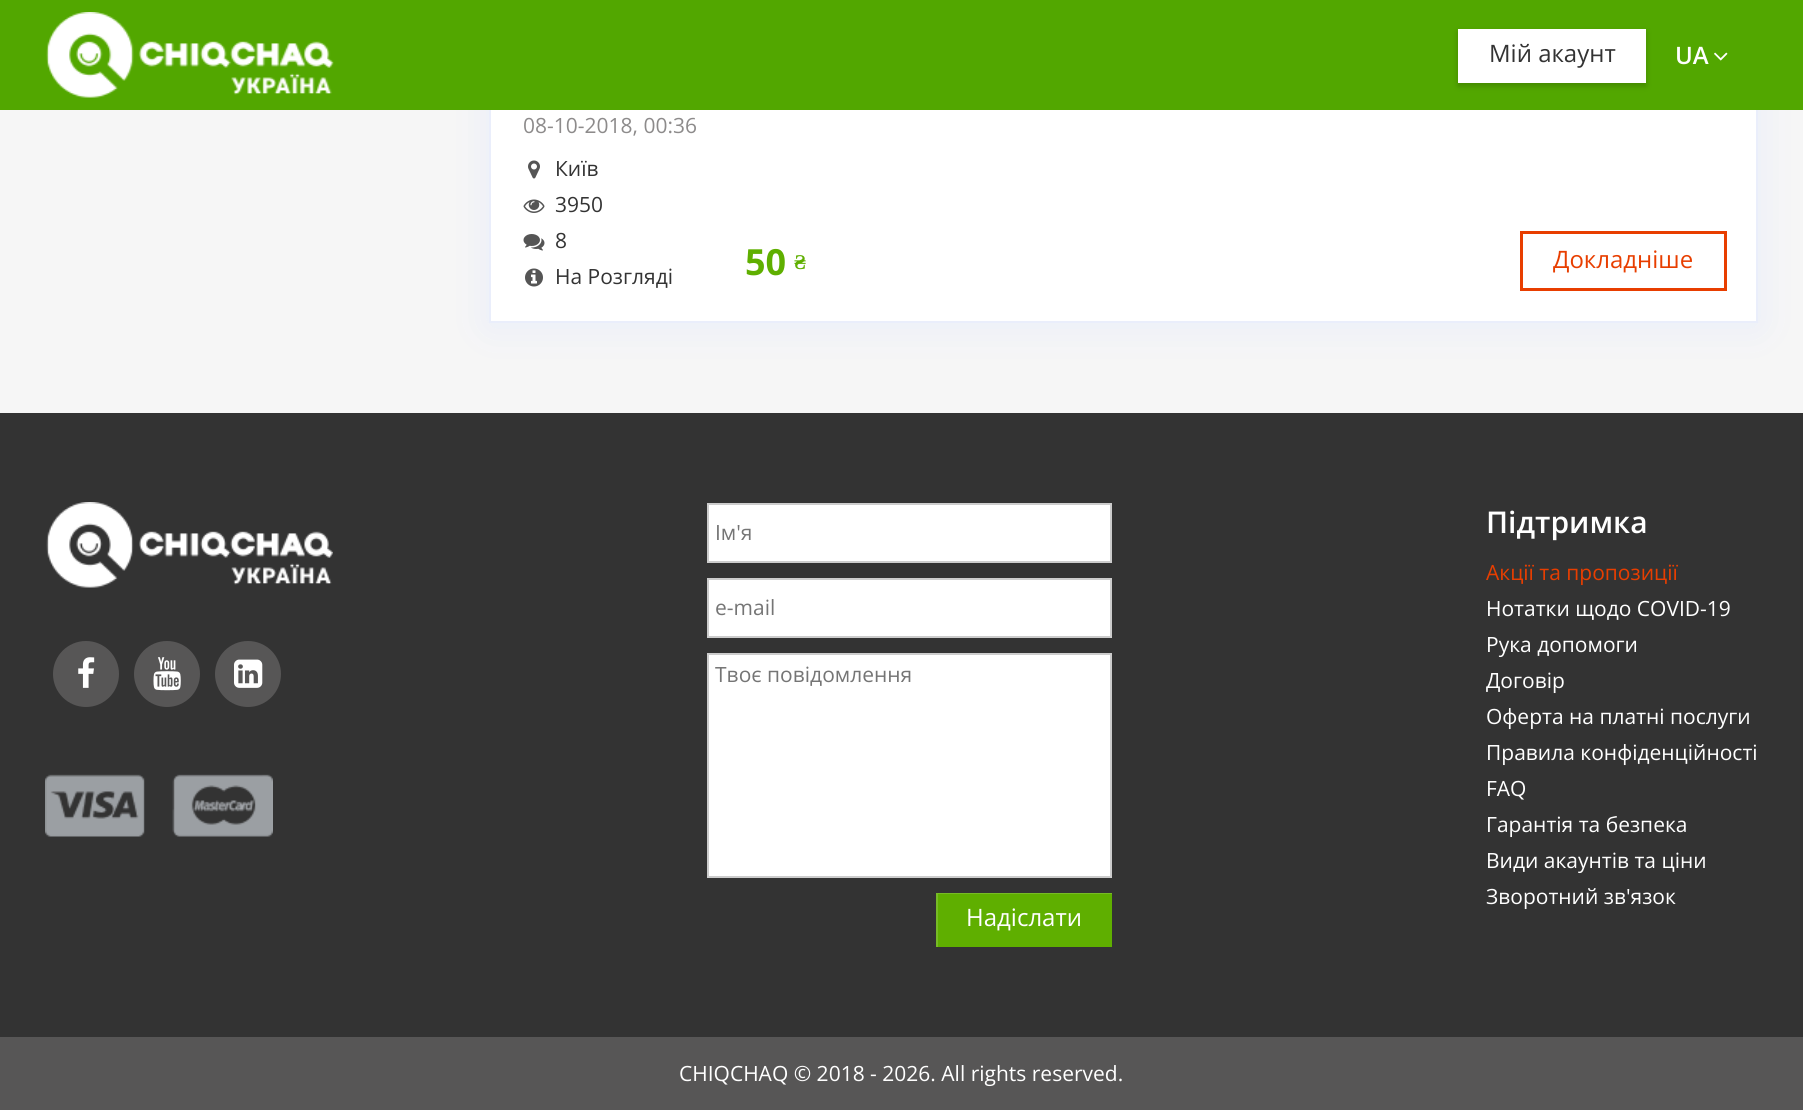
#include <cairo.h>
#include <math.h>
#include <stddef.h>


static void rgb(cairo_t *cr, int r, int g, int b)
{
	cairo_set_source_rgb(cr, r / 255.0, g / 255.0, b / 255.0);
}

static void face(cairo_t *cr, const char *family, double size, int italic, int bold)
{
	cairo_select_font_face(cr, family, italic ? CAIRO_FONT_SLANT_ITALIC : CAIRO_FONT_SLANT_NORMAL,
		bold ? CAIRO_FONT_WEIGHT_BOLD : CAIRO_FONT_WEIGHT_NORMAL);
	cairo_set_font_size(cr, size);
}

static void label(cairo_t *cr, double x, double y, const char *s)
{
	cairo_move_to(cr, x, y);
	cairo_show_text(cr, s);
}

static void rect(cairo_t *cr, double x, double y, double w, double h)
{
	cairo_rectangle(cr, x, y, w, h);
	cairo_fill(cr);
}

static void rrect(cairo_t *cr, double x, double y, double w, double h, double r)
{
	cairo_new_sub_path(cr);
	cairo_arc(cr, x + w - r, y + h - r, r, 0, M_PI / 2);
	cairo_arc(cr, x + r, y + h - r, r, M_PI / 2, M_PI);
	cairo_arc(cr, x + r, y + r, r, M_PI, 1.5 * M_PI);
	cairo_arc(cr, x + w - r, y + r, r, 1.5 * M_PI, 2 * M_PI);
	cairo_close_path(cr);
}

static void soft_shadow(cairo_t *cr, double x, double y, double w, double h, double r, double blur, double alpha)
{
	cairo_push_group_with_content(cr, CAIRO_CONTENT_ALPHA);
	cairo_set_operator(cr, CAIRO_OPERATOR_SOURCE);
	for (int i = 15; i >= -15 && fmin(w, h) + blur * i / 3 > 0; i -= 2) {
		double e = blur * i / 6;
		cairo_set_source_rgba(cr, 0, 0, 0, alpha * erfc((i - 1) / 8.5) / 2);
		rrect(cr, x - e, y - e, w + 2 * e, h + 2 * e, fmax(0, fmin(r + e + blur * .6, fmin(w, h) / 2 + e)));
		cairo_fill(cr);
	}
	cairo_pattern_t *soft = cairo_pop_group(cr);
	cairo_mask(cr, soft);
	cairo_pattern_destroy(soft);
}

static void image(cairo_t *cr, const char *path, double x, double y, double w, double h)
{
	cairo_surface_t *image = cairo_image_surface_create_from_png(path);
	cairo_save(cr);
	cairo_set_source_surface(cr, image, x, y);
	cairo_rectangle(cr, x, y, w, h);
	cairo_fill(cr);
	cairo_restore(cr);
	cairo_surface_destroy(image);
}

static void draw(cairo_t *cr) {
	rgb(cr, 246, 246, 246);
	cairo_paint(cr);
	rgb(cr, 232, 237, 250);
	soft_shadow(cr, 489, -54, 1269, 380, 0, 18, 1);
	rgb(cr, 255, 255, 255);
	rect(cr, 491, 110, 1265, 211);
	cairo_rectangle(cr, 490, -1, 1267, 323);
	rgb(cr, 234, 238, 251);
	cairo_stroke(cr);
	rgb(cr, 82, 167, 0);
	rect(cr, 0, 0, 1803, 110);
	image(cr, "image0.png", 46, 12, 288, 86);
	rgb(cr, 0, 0, 0);
	soft_shadow(cr, 1458, 32, 188, 54, 0, 3, 0.19);
	rgb(cr, 255, 255, 255);
	rect(cr, 1458, 29, 188, 54);
	face(cr, "Open Sans", 24, 0, 0);
	rgb(cr, 51, 51, 51);
	label(cr, 1489, 62, "Мій акаунт");
	face(cr, "Open Sans SemiBold", 24, 0, 0);
	rgb(cr, 255, 255, 255);
	label(cr, 1675, 64, "UA");
	image(cr, "image1.png", 1714, 52, 14, 9);
	face(cr, "Open Sans", 21, 0, 0);
	rgb(cr, 141, 139, 139);
	label(cr, 523, 133, "08-10-2018, 00:36");
	image(cr, "image2.png", 528, 160, 12, 19);
	rgb(cr, 51, 51, 51);
	label(cr, 555, 176, "Київ");
	image(cr, "image3.png", 523, 199, 22, 14);
	label(cr, 555, 212, "3950");
	image(cr, "image4.png", 523, 234, 22, 17);
	label(cr, 555, 248, "8");
	image(cr, "image5.png", 525, 268, 18, 19);
	label(cr, 555, 284, "На Розгляді");
	face(cr, "Open Sans", 36, 0, 1);
	rgb(cr, 95, 175, 0);
	label(cr, 745, 275, "50");
	face(cr, "Liberation Serif", 21, 0, 1);
	label(cr, 794, 269, "₴");
	cairo_rectangle(cr, 1521.5, 232.5, 204, 57);
	rgb(cr, 232, 62, 0);
	cairo_set_line_width(cr, 3);
	cairo_stroke(cr);
	face(cr, "Open Sans", 24, 0, 0);
	label(cr, 1553, 268, "Докладніше");
	rgb(cr, 51, 51, 51);
	rect(cr, 0, 413, 1803, 624);
	image(cr, "image6.png", 46, 502, 287, 86);
	rgb(cr, 87, 86, 86);
	cairo_arc(cr, 86, 674, 33, 0, 2 * M_PI);
	cairo_fill(cr);
	image(cr, "image7.png", 78, 657, 17, 31);
	cairo_arc(cr, 167, 674, 33, 0, 2 * M_PI);
	cairo_fill(cr);
	image(cr, "image8.png", 153, 657, 28, 34);
	cairo_arc(cr, 248, 674, 33, 0, 2 * M_PI);
	cairo_fill(cr);
	image(cr, "image9.png", 234, 659, 29, 29);
	image(cr, "image10.png", 45, 774, 228, 63);
	rgb(cr, 255, 255, 255);
	cairo_rectangle(cr, 708, 504, 403, 58);
	cairo_fill_preserve(cr);
	rgb(cr, 204, 204, 204);
	cairo_set_line_width(cr, 2);
	cairo_stroke(cr);
	face(cr, "Open Sans", 21, 0, 0);
	rgb(cr, 117, 117, 117);
	label(cr, 715, 540, "Ім'я");
	rgb(cr, 255, 255, 255);
	cairo_rectangle(cr, 708, 579, 403, 58);
	cairo_fill_preserve(cr);
	rgb(cr, 204, 204, 204);
	cairo_stroke(cr);
	rgb(cr, 117, 117, 117);
	label(cr, 715, 615, "e-mail");
	rgb(cr, 255, 255, 255);
	cairo_rectangle(cr, 708, 654, 403, 223);
	cairo_fill_preserve(cr);
	rgb(cr, 204, 204, 204);
	cairo_stroke(cr);
	rgb(cr, 117, 117, 117);
	label(cr, 715, 682, "Твоє повідомлення");
	rgb(cr, 95, 175, 0);
	rect(cr, 938, 894, 174, 53);
	cairo_save(cr);
	cairo_rectangle(cr, 936, 893, 176, 54);
	cairo_clip(cr);
	rgb(cr, 119, 187, 38);
	cairo_set_fill_rule(cr, CAIRO_FILL_RULE_EVEN_ODD);
	cairo_new_path(cr);
	cairo_move_to(cr, 788, 744);
	cairo_line_to(cr, 1260, 744);
	cairo_line_to(cr, 1260, 1095);
	cairo_line_to(cr, 788, 1095);
	cairo_close_path(cr);
	cairo_move_to(cr, 938, 894);
	cairo_line_to(cr, 1113, 894);
	cairo_line_to(cr, 1113, 948);
	cairo_line_to(cr, 938, 948);
	cairo_close_path(cr);
	cairo_fill(cr);
	cairo_restore(cr);
	face(cr, "Open Sans", 24, 0, 0);
	rgb(cr, 255, 255, 255);
	label(cr, 966, 926, "Надіслати");
	face(cr, "Open Sans SemiBold", 30, 0, 0);
	label(cr, 1486, 533, "Підтримка");
	face(cr, "Open Sans", 21, 0, 0);
	rgb(cr, 232, 62, 0);
	label(cr, 1486, 580, "Акції та пропозиції");
	rgb(cr, 255, 255, 255);
	label(cr, 1486, 616, "Нотатки щодо COVID-19");
	label(cr, 1486, 652, "Рука допомоги");
	label(cr, 1486, 688, "Договір");
	label(cr, 1486, 724, "Оферта на платні послуги");
	label(cr, 1486, 760, "Правила конфіденційності");
	label(cr, 1486, 796, "FAQ");
	label(cr, 1486, 832, "Гарантія та безпека");
	label(cr, 1486, 868, "Види акаунтів та ціни");
	label(cr, 1486, 904, "Зворотний зв'язок");
	rgb(cr, 87, 86, 86);
	rect(cr, 0, 1037, 1803, 73);
	rgb(cr, 255, 255, 255);
	label(cr, 679, 1081, "СHIQCHAQ © 2018 - 2026. All rights reserved.");
}

int main(void) {
	cairo_surface_t *surface = cairo_image_surface_create(CAIRO_FORMAT_RGB24, 1803, 1110);
	cairo_t *cr = cairo_create(surface);
	cairo_font_options_t *options = cairo_font_options_create();
	cairo_font_options_set_hint_metrics(options, CAIRO_HINT_METRICS_OFF);
	cairo_font_options_set_hint_style(options, CAIRO_HINT_STYLE_NONE);
	cairo_set_font_options(cr, options);
	cairo_set_miter_limit(cr, 4);
	draw(cr);
	cairo_surface_write_to_png(surface, "render.png");
	cairo_font_options_destroy(options);
	cairo_destroy(cr);
	cairo_surface_destroy(surface);
	return 0;
}
